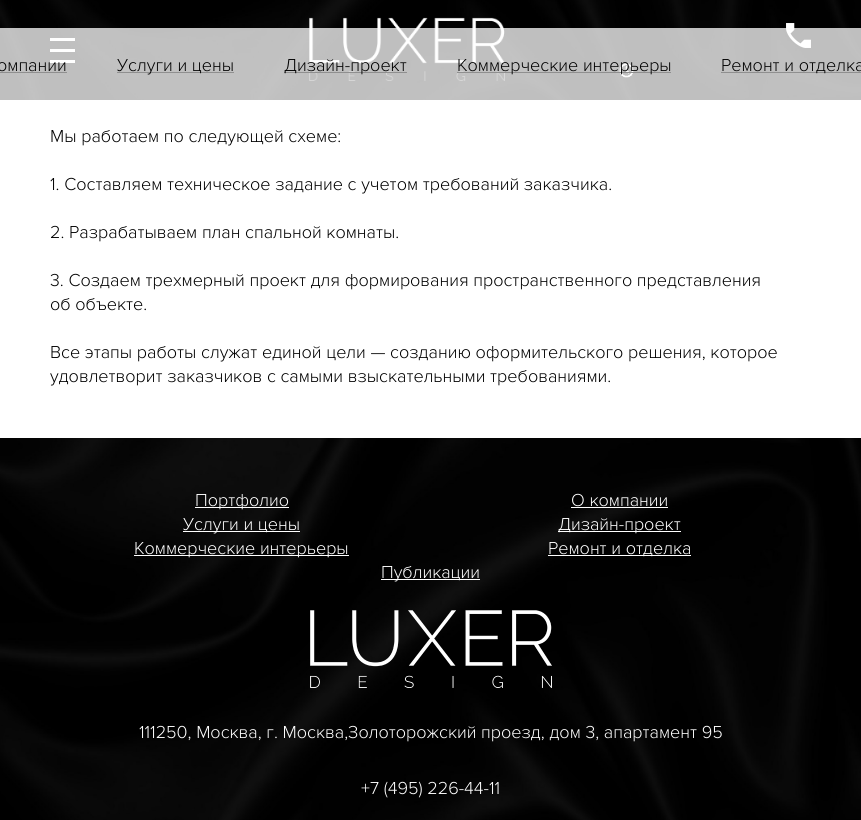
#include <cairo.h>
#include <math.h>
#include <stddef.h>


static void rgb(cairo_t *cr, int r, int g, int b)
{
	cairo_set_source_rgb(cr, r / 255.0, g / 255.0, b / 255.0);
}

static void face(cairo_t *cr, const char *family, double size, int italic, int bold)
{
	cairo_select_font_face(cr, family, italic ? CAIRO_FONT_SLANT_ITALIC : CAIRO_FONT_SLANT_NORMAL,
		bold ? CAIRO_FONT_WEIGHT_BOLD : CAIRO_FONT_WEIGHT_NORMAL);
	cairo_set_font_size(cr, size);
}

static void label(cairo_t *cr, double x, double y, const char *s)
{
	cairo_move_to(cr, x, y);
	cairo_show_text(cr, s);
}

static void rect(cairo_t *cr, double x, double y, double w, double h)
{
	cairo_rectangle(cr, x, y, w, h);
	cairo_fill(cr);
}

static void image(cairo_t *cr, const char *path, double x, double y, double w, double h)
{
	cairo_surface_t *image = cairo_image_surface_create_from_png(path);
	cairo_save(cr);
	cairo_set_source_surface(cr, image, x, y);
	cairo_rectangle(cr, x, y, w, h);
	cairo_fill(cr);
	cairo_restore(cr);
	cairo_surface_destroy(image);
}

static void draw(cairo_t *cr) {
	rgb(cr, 255, 255, 255);
	cairo_paint(cr);
	image(cr, "image0.png", 0, 0, 861, 100);
	image(cr, "image1.png", 50, 38, 25, 25);
	image(cr, "image2.png", 309, 17, 196, 64);
	image(cr, "image3.png", 786, 23, 25, 25);
	image(cr, "image4.png", 619, 63, 15, 15);
	cairo_set_source_rgba(cr, 1, 1, 1, 0.75);
	rect(cr, 0, 28, 861, 72);
	face(cr, "Proxima Nova Light", 18, 0, 0);
	rgb(cr, 0, 0, 0);
	label(cr, -3, 71, "омпании");
	rgb(cr, 143, 143, 143);
	rect(cr, 0, 72, 67, 1);
	rect(cr, 117, 72, 117, 1);
	rgb(cr, 0, 0, 0);
	label(cr, 117, 71, "Услуги и цены");
	rgb(cr, 143, 143, 143);
	rect(cr, 284, 72, 123, 1);
	rgb(cr, 0, 0, 0);
	label(cr, 284, 71, "Дизайн-проект");
	rgb(cr, 143, 143, 143);
	rect(cr, 457, 72, 214, 1);
	rgb(cr, 0, 0, 0);
	label(cr, 457, 71, "Коммерческие интерьеры");
	rgb(cr, 143, 143, 143);
	rect(cr, 721, 72, 140, 1);
	rgb(cr, 0, 0, 0);
	label(cr, 721, 71, "Ремонт и отделка");
	label(cr, 50, 142, "Мы работаем по следующей схеме:");
	label(cr, 50, 190, "1. Составляем техническое задание с учетом требований заказчика.");
	label(cr, 50, 238, "2. Разрабатываем план спальной комнаты.");
	label(cr, 50, 286, "3. Создаем трехмерный проект для формирования пространственного представления");
	label(cr, 50, 310, "об объекте.");
	label(cr, 50, 358, "Все этапы работы служат единой цели — созданию оформительского решения, которое");
	label(cr, 50, 382, "удовлетворит заказчиков с самыми взыскательными требованиями.");
	image(cr, "image5.png", 0, 438, 861, 382);
	rgb(cr, 255, 255, 255);
	rect(cr, 195, 507, 94, 1);
	label(cr, 195, 506, "Портфолио");
	label(cr, 571, 506, "О компании");
	rect(cr, 571, 507, 97, 1);
	rect(cr, 183, 531, 117, 1);
	label(cr, 183, 530, "Услуги и цены");
	rect(cr, 558, 531, 123, 1);
	label(cr, 558, 530, "Дизайн-проект");
	rect(cr, 134, 555, 215, 1);
	label(cr, 134, 554, "Коммерческие интерьеры");
	rect(cr, 548, 555, 143, 1);
	label(cr, 548, 554, "Ремонт и отделка");
	rect(cr, 381, 579, 99, 1);
	label(cr, 381, 578, "Публикации");
	image(cr, "image6.png", 310, 610, 242, 78);
	label(cr, 139, 738, "111250, Москва, г. Москва,Золоторожский проезд, дом 3, апартамент 95");
	label(cr, 361, 794, "+7 (495) 226-44-11");
}

int main(void) {
	cairo_surface_t *surface = cairo_image_surface_create(CAIRO_FORMAT_RGB24, 861, 820);
	cairo_t *cr = cairo_create(surface);
	cairo_font_options_t *options = cairo_font_options_create();
	cairo_font_options_set_hint_metrics(options, CAIRO_HINT_METRICS_OFF);
	cairo_font_options_set_hint_style(options, CAIRO_HINT_STYLE_NONE);
	cairo_set_font_options(cr, options);
	cairo_set_miter_limit(cr, 4);
	draw(cr);
	cairo_surface_write_to_png(surface, "render.png");
	cairo_font_options_destroy(options);
	cairo_destroy(cr);
	cairo_surface_destroy(surface);
	return 0;
}
